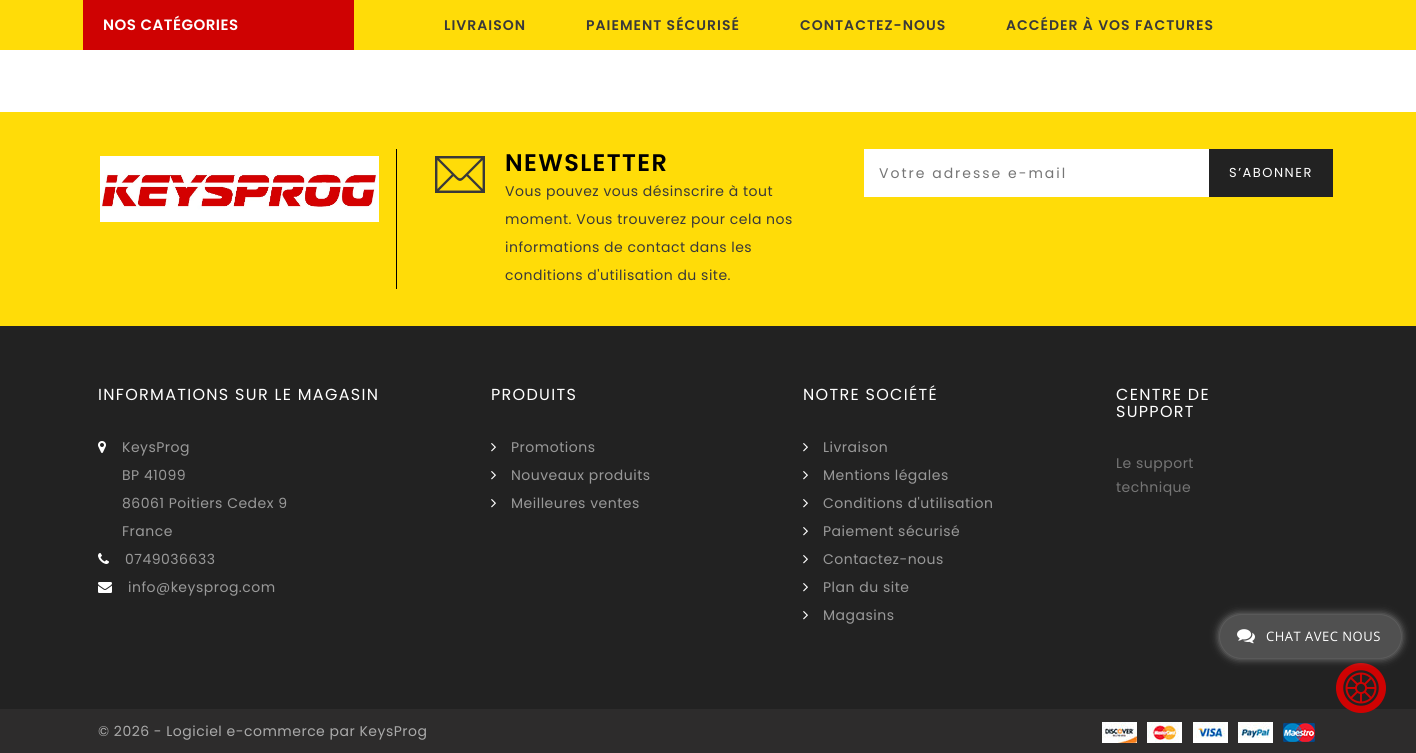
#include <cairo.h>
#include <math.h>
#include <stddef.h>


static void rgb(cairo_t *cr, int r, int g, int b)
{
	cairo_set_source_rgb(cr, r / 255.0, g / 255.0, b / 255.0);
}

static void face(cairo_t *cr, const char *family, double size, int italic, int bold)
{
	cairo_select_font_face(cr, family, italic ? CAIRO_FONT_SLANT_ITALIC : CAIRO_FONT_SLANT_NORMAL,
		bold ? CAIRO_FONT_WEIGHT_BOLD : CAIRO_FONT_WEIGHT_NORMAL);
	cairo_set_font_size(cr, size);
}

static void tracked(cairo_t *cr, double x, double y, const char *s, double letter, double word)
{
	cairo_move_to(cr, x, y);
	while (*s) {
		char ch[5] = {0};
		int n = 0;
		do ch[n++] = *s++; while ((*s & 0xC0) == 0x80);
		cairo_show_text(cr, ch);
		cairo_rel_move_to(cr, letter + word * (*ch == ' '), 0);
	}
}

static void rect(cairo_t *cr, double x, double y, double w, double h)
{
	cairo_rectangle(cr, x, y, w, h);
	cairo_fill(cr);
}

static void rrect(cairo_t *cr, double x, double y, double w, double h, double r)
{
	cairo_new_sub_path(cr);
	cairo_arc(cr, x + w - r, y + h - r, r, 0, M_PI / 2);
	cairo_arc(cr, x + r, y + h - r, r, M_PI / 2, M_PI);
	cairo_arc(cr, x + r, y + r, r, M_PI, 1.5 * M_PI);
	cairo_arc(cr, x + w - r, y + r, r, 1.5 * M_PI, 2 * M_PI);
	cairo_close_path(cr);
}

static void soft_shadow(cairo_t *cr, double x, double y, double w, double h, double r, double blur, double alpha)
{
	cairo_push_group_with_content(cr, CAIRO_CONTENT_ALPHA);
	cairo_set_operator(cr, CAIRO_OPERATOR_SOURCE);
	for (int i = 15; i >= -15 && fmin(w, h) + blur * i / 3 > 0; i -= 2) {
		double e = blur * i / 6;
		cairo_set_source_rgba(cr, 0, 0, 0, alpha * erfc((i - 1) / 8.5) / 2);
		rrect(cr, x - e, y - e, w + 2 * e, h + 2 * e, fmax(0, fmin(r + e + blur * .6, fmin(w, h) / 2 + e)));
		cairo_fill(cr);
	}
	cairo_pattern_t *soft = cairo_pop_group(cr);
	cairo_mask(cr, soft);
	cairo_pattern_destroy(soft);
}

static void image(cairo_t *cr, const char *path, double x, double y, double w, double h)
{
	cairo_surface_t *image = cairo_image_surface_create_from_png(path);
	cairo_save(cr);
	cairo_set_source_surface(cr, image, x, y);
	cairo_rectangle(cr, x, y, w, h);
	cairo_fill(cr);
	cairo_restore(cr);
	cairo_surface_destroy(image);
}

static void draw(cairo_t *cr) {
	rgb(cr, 255, 255, 255);
	cairo_paint(cr);
	rgb(cr, 255, 220, 8);
	rect(cr, 0, 0, 1416, 50);
	rgb(cr, 207, 2, 2);
	rect(cr, 83, 0, 271, 50);
	face(cr, "Poppins SemiBold", 15, 0, 0);
	rgb(cr, 255, 255, 255);
	tracked(cr, 103, 30, "NOS CATÉGORIES", 0.5, 0);
	face(cr, "Poppins SemiBold", 14, 0, 0);
	rgb(cr, 57, 57, 57);
	tracked(cr, 444, 30, "LIVRAISON", 1, 0);
	tracked(cr, 586, 30, "PAIEMENT SÉCURISÉ", 1, 0);
	tracked(cr, 800, 30, "CONTACTEZ-NOUS", 1, 0);
	tracked(cr, 1006, 30, "ACCÉDER À VOS FACTURES", 1, 0);
	rgb(cr, 255, 220, 8);
	rect(cr, 0, 112, 1416, 214);
	image(cr, "image0.png", 100, 156, 279, 66);
	rgb(cr, 0, 0, 0);
	rect(cr, 396, 149, 1, 140);
	image(cr, "image1.png", 435, 156, 50, 37);
	face(cr, "Poppins SemiBold", 24, 0, 0);
	tracked(cr, 505, 171, "NEWSLETTER", 1.4, 0);
	face(cr, "Poppins", 14, 0, 0);
	rgb(cr, 57, 57, 57);
	tracked(cr, 505, 196, "Vous pouvez vous désinscrire à tout", 0.5, 0);
	tracked(cr, 505, 224, "moment. Vous trouverez pour cela nos", 0.5, 0);
	tracked(cr, 505, 252, "informations de contact dans les", 0.5, 0);
	tracked(cr, 505, 280, "conditions d'utilisation du site.", 0.5, 0);
	rgb(cr, 255, 255, 255);
	rect(cr, 864, 149, 345, 48);
	rgb(cr, 117, 117, 117);
	tracked(cr, 879, 178, "Votre adresse e-mail", 2, 0);
	rgb(cr, 34, 34, 34);
	rect(cr, 1209, 149, 124, 48);
	face(cr, "Poppins", 13, 0, 0);
	rgb(cr, 255, 255, 255);
	tracked(cr, 1229, 177, "S’ABONNER", 1.5, 0);
	rgb(cr, 34, 34, 34);
	rect(cr, 0, 326, 1416, 383);
	face(cr, "Poppins", 16, 0, 0);
	rgb(cr, 255, 255, 255);
	tracked(cr, 98, 400, "INFORMATIONS SUR LE MAGASIN", 1.3, 0);
	image(cr, "image2.png", 98, 441, 8, 12);
	face(cr, "Poppins", 14, 0, 0);
	rgb(cr, 153, 153, 153);
	tracked(cr, 122, 452, "KeysProg", 0.5, 0);
	tracked(cr, 122, 480, "BP 41099", 0.5, 0);
	tracked(cr, 122, 508, "86061 Poitiers Cedex 9", 0.5, 0);
	tracked(cr, 122, 536, "France", 0.5, 0);
	image(cr, "image3.png", 98, 553, 11, 11);
	tracked(cr, 125, 564, "0749036633", 0.5, 0);
	image(cr, "image4.png", 98, 582, 14, 11);
	tracked(cr, 128, 592, "info@keysprog.com", 0.5, 0);
	face(cr, "Poppins", 16, 0, 0);
	rgb(cr, 255, 255, 255);
	tracked(cr, 491, 400, "PRODUITS", 1.3, 0);
	image(cr, "image5.png", 491, 443, 5, 9);
	face(cr, "Poppins", 14, 0, 0);
	rgb(cr, 153, 153, 153);
	tracked(cr, 511, 452, "Promotions", 0.5, 0);
	image(cr, "image5.png", 491, 471, 5, 9);
	tracked(cr, 511, 480, "Nouveaux produits", 0.5, 0);
	image(cr, "image5.png", 491, 499, 5, 9);
	tracked(cr, 511, 508, "Meilleures ventes", 0.5, 0);
	face(cr, "Poppins", 16, 0, 0);
	rgb(cr, 255, 255, 255);
	tracked(cr, 803, 400, "NOTRE SOCIÉTÉ", 1.3, 0);
	image(cr, "image5.png", 803, 443, 5, 9);
	face(cr, "Poppins", 14, 0, 0);
	rgb(cr, 153, 153, 153);
	tracked(cr, 823, 452, "Livraison", 0.5, 0);
	image(cr, "image5.png", 803, 471, 5, 9);
	tracked(cr, 823, 480, "Mentions légales", 0.5, 0);
	image(cr, "image5.png", 803, 499, 5, 9);
	tracked(cr, 823, 508, "Conditions d'utilisation", 0.5, 0);
	image(cr, "image5.png", 803, 527, 5, 9);
	tracked(cr, 823, 536, "Paiement sécurisé", 0.5, 0);
	image(cr, "image5.png", 803, 555, 5, 9);
	tracked(cr, 823, 564, "Contactez-nous", 0.5, 0);
	image(cr, "image5.png", 803, 583, 5, 9);
	tracked(cr, 823, 592, "Plan du site", 0.5, 0);
	image(cr, "image5.png", 803, 611, 5, 9);
	tracked(cr, 823, 620, "Magasins", 0.5, 0);
	face(cr, "Poppins", 16, 0, 0);
	rgb(cr, 255, 255, 255);
	tracked(cr, 1116, 400, "CENTRE DE", 1.3, 0);
	tracked(cr, 1116, 417, "SUPPORT", 1.3, 0);
	face(cr, "Poppins", 14, 0, 0);
	rgb(cr, 117, 117, 117);
	tracked(cr, 1116, 468, "Le support", 0.5, 0);
	tracked(cr, 1116, 492, "technique", 0.5, 0);
	rgb(cr, 45, 44, 44);
	rect(cr, 0, 709, 1416, 44);
	image(cr, "image6.png", 1336, 663, 50, 50);
	rgb(cr, 170, 170, 170);
	tracked(cr, 98, 736, "© 2026 - Logiciel e-commerce par KeysProg", 0.5, 0);
	image(cr, "image7.png", 1102, 722, 35, 21);
	image(cr, "image8.png", 1147, 722, 35, 21);
	image(cr, "image9.png", 1193, 722, 35, 21);
	image(cr, "image10.png", 1238, 722, 35, 21);
	image(cr, "image11.png", 1283, 723, 32, 19);
	rgb(cr, 153, 153, 153);
	soft_shadow(cr, 1220, 615, 181, 43, 21.5, 4.5, 1);
	rgb(cr, 80, 80, 80);
	rrect(cr, 1220, 615, 181, 43, 21.5);
	cairo_fill(cr);
	image(cr, "image12.png", 1237, 629, 18, 15);
	face(cr, "Open Sans", 13, 0, 0);
	rgb(cr, 255, 255, 255);
	tracked(cr, 1266, 641, "CHAT AVEC NOUS", 0.5, 0);
}

int main(void) {
	cairo_surface_t *surface = cairo_image_surface_create(CAIRO_FORMAT_RGB24, 1416, 753);
	cairo_t *cr = cairo_create(surface);
	cairo_font_options_t *options = cairo_font_options_create();
	cairo_font_options_set_hint_metrics(options, CAIRO_HINT_METRICS_OFF);
	cairo_font_options_set_hint_style(options, CAIRO_HINT_STYLE_NONE);
	cairo_set_font_options(cr, options);
	cairo_set_miter_limit(cr, 4);
	draw(cr);
	cairo_surface_write_to_png(surface, "render.png");
	cairo_font_options_destroy(options);
	cairo_destroy(cr);
	cairo_surface_destroy(surface);
	return 0;
}
